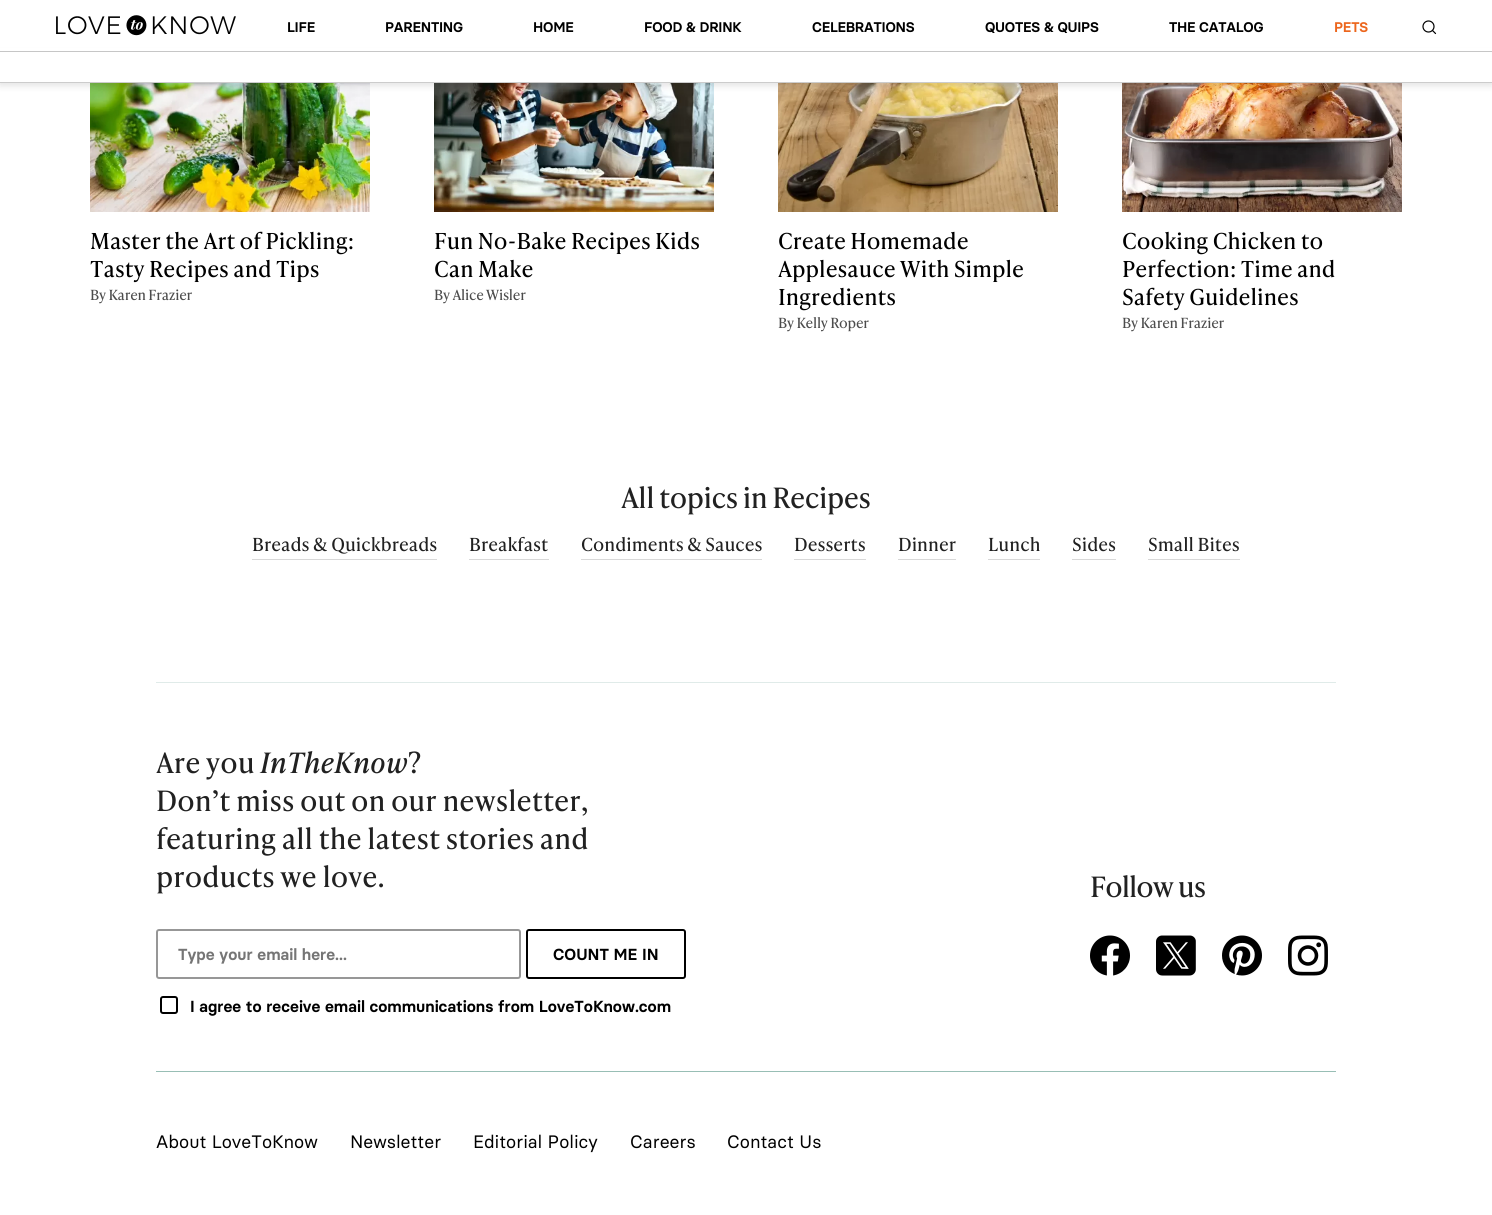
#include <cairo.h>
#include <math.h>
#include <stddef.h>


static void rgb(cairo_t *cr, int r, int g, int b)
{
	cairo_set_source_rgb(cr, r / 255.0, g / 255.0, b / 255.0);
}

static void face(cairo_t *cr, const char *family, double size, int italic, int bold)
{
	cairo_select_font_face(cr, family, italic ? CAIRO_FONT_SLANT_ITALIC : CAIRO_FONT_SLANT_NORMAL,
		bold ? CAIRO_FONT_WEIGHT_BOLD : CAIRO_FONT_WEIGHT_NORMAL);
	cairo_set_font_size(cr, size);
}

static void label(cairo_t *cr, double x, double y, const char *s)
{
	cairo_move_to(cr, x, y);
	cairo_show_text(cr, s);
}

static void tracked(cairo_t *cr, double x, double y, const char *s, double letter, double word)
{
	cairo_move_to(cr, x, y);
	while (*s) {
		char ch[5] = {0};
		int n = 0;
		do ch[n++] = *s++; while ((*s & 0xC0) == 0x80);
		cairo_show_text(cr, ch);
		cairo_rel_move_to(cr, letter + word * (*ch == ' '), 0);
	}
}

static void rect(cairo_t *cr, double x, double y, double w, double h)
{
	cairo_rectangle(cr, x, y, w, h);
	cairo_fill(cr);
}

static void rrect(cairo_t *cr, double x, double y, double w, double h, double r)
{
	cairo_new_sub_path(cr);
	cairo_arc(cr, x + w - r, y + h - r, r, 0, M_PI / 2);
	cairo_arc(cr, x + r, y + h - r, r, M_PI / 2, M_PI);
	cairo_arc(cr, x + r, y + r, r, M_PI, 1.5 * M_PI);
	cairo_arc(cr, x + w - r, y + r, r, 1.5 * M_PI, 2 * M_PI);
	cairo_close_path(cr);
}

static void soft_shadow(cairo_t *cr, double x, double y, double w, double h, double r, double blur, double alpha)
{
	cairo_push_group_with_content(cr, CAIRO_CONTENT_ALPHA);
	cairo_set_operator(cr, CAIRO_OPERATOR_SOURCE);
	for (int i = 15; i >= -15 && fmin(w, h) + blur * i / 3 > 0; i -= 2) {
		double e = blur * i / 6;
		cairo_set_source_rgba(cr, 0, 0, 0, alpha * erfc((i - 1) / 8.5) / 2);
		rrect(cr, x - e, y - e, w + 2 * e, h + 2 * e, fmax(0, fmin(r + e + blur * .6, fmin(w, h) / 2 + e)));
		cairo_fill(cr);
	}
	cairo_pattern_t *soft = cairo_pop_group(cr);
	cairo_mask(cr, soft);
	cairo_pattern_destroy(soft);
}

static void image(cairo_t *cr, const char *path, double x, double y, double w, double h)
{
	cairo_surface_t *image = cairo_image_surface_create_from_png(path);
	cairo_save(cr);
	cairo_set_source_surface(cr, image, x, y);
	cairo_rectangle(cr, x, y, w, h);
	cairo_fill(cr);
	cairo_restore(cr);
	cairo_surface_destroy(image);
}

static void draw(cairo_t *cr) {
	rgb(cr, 255, 255, 255);
	cairo_paint(cr);
	image(cr, "image1.png", 90, 83, 280, 129);
	image(cr, "image2.png", 434, 83, 280, 129);
	image(cr, "image3.png", 778, 83, 280, 129);
	image(cr, "image4.png", 1122, 83, 280, 129);
	rgb(cr, 0, 0, 0);
	soft_shadow(cr, 0, 54, 1492, 31, 0, 4, 0.13);
	rgb(cr, 255, 255, 255);
	rect(cr, 0, 48, 1492, 3);
	rgb(cr, 198, 198, 198);
	rect(cr, 0, 51, 1492, 1);
	image(cr, "image0.png", 56, 15, 180, 21);
	face(cr, "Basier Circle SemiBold", 14, 0, 0);
	rgb(cr, 0, 0, 0);
	tracked(cr, 287, 32, "LIFE", -0.25, 0);
	tracked(cr, 385, 32, "PARENTING", -0.25, 0);
	tracked(cr, 533, 32, "HOME", -0.25, 0);
	tracked(cr, 644, 32, "FOOD & DRINK", -0.25, 0);
	tracked(cr, 812, 32, "CELEBRATIONS", -0.25, 0);
	tracked(cr, 985, 32, "QUOTES & QUIPS", -0.25, 0);
	tracked(cr, 1169, 32, "THE CATALOG", -0.25, 0);
	rgb(cr, 236, 102, 29);
	tracked(cr, 1334, 32, "PETS", -0.25, 0);
	cairo_new_path(cr);
	cairo_arc(cr, 1428.5, 26.5, 5.5, 0, 2 * M_PI);
	rgb(cr, 0, 0, 0);
	cairo_set_line_width(cr, 1.2);
	cairo_stroke(cr);
	cairo_new_path(cr);
	cairo_move_to(cr, 1432.5, 30.5);
	cairo_line_to(cr, 1435.5, 33.5);
	cairo_set_line_cap(cr, CAIRO_LINE_CAP_ROUND);
	cairo_stroke(cr);
	rgb(cr, 255, 255, 255);
	rect(cr, 0, 52, 1492, 30);
	rgb(cr, 204, 204, 204);
	rect(cr, 0, 82, 1492, 1);
	face(cr, "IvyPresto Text", 22, 0, 0);
	rgb(cr, 0, 0, 0);
	label(cr, 90, 249, "Master the Art of Pickling:");
	label(cr, 90, 277, "Tasty Recipes and Tips");
	face(cr, "IvyPresto Text", 14, 0, 0);
	rgb(cr, 76, 76, 76);
	tracked(cr, 90, 300, "By Karen Frazier", -0.25, 0);
	face(cr, "IvyPresto Text", 22, 0, 0);
	rgb(cr, 0, 0, 0);
	label(cr, 434, 249, "Fun No-Bake Recipes Kids");
	label(cr, 434, 277, "Can Make");
	face(cr, "IvyPresto Text", 14, 0, 0);
	rgb(cr, 76, 76, 76);
	tracked(cr, 434, 300, "By Alice Wisler", -0.25, 0);
	face(cr, "IvyPresto Text", 22, 0, 0);
	rgb(cr, 0, 0, 0);
	label(cr, 778, 249, "Create Homemade");
	label(cr, 778, 277, "Applesauce With Simple");
	label(cr, 778, 305, "Ingredients");
	face(cr, "IvyPresto Text", 14, 0, 0);
	rgb(cr, 76, 76, 76);
	tracked(cr, 778, 328, "By Kelly Roper", -0.25, 0);
	face(cr, "IvyPresto Text", 22, 0, 0);
	rgb(cr, 0, 0, 0);
	label(cr, 1122, 249, "Cooking Chicken to");
	label(cr, 1122, 277, "Perfection: Time and");
	label(cr, 1122, 305, "Safety Guidelines");
	face(cr, "IvyPresto Text", 14, 0, 0);
	rgb(cr, 76, 76, 76);
	tracked(cr, 1122, 328, "By Karen Frazier", -0.25, 0);
	face(cr, "IvyPresto Text", 28, 0, 0);
	rgb(cr, 33, 33, 33);
	tracked(cr, 621, 508, "All topics in Recipes", -0.5, 0);
	face(cr, "IvyPresto Text", 18, 0, 0);
	label(cr, 252, 551, "Breads & Quickbreads");
	rgb(cr, 216, 216, 216);
	rect(cr, 252, 559, 185, 1);
	rgb(cr, 33, 33, 33);
	label(cr, 469, 551, "Breakfast");
	rgb(cr, 216, 216, 216);
	rect(cr, 469, 559, 80, 1);
	rgb(cr, 33, 33, 33);
	label(cr, 581, 551, "Condiments & Sauces");
	rgb(cr, 216, 216, 216);
	rect(cr, 581, 559, 181, 1);
	rgb(cr, 33, 33, 33);
	label(cr, 794, 551, "Desserts");
	rgb(cr, 216, 216, 216);
	rect(cr, 794, 559, 72, 1);
	rgb(cr, 33, 33, 33);
	label(cr, 898, 551, "Dinner");
	rgb(cr, 216, 216, 216);
	rect(cr, 898, 559, 58, 1);
	rgb(cr, 33, 33, 33);
	label(cr, 988, 551, "Lunch");
	rgb(cr, 216, 216, 216);
	rect(cr, 988, 559, 52, 1);
	rgb(cr, 33, 33, 33);
	label(cr, 1072, 551, "Sides");
	rgb(cr, 216, 216, 216);
	rect(cr, 1072, 559, 44, 1);
	rgb(cr, 33, 33, 33);
	label(cr, 1148, 551, "Small Bites");
	rgb(cr, 216, 216, 216);
	rect(cr, 1148, 559, 92, 1);
	rgb(cr, 224, 235, 233);
	rect(cr, 156, 682, 1180, 1);
	face(cr, "IvyPresto Text", 28, 0, 0);
	rgb(cr, 33, 33, 33);
	label(cr, 156, 773, "Are you");
	face(cr, "IvyPresto Text", 28, 1, 0);
	label(cr, 260, 773, "InTheKnow");
	face(cr, "IvyPresto Text", 28, 0, 0);
	label(cr, 408, 773, "?");
	label(cr, 156, 811, "Don’t miss out on our newsletter,");
	label(cr, 156, 849, "featuring all the latest stories and");
	label(cr, 156, 887, "products we love.");
	rrect(cr, 157, 930, 363, 48, 2);
	rgb(cr, 151, 151, 151);
	cairo_set_line_width(cr, 2);
	cairo_set_line_cap(cr, CAIRO_LINE_CAP_BUTT);
	cairo_stroke(cr);
	face(cr, "Basier Circle SemiBold", 16, 0, 0);
	rgb(cr, 117, 117, 117);
	label(cr, 178, 960, "Type your email here...");
	rrect(cr, 527, 930, 158, 48, 2);
	rgb(cr, 0, 0, 0);
	cairo_stroke(cr);
	label(cr, 553, 960, "COUNT ME IN");
	rrect(cr, 161, 997, 16, 16, 2);
	cairo_stroke(cr);
	label(cr, 190, 1012, "I agree to receive email communications from LoveToKnow.com");
	face(cr, "IvyPresto Text", 28, 0, 0);
	rgb(cr, 33, 33, 33);
	tracked(cr, 1090, 897, "Follow us", -1, 0);
	image(cr, "image5.png", 1090, 935, 40, 41);
	image(cr, "image6.png", 1156, 935, 40, 41);
	image(cr, "image7.png", 1222, 935, 40, 41);
	image(cr, "image8.png", 1288, 935, 40, 41);
	rgb(cr, 152, 190, 181);
	rect(cr, 156, 1071, 1180, 1);
	face(cr, "Basier Circle", 18, 0, 0);
	rgb(cr, 0, 0, 0);
	label(cr, 156, 1148, "About LoveToKnow");
	label(cr, 350, 1148, "Newsletter");
	label(cr, 473, 1148, "Editorial Policy");
	label(cr, 630, 1148, "Careers");
	label(cr, 727, 1148, "Contact Us");
}

int main(void) {
	cairo_surface_t *surface = cairo_image_surface_create(CAIRO_FORMAT_RGB24, 1492, 1215);
	cairo_t *cr = cairo_create(surface);
	cairo_font_options_t *options = cairo_font_options_create();
	cairo_font_options_set_hint_metrics(options, CAIRO_HINT_METRICS_OFF);
	cairo_font_options_set_hint_style(options, CAIRO_HINT_STYLE_NONE);
	cairo_set_font_options(cr, options);
	cairo_set_miter_limit(cr, 4);
	draw(cr);
	cairo_surface_write_to_png(surface, "render.png");
	cairo_font_options_destroy(options);
	cairo_destroy(cr);
	cairo_surface_destroy(surface);
	return 0;
}
